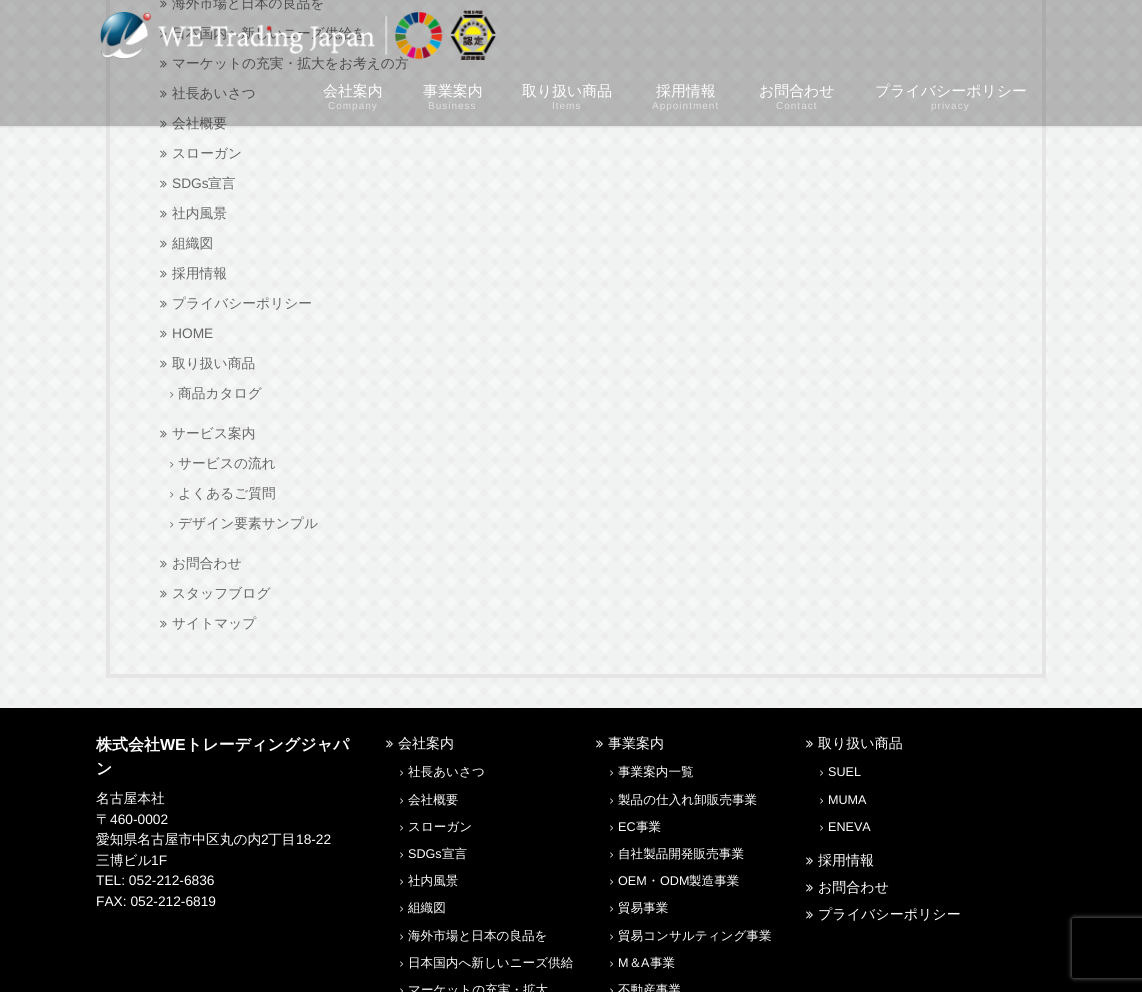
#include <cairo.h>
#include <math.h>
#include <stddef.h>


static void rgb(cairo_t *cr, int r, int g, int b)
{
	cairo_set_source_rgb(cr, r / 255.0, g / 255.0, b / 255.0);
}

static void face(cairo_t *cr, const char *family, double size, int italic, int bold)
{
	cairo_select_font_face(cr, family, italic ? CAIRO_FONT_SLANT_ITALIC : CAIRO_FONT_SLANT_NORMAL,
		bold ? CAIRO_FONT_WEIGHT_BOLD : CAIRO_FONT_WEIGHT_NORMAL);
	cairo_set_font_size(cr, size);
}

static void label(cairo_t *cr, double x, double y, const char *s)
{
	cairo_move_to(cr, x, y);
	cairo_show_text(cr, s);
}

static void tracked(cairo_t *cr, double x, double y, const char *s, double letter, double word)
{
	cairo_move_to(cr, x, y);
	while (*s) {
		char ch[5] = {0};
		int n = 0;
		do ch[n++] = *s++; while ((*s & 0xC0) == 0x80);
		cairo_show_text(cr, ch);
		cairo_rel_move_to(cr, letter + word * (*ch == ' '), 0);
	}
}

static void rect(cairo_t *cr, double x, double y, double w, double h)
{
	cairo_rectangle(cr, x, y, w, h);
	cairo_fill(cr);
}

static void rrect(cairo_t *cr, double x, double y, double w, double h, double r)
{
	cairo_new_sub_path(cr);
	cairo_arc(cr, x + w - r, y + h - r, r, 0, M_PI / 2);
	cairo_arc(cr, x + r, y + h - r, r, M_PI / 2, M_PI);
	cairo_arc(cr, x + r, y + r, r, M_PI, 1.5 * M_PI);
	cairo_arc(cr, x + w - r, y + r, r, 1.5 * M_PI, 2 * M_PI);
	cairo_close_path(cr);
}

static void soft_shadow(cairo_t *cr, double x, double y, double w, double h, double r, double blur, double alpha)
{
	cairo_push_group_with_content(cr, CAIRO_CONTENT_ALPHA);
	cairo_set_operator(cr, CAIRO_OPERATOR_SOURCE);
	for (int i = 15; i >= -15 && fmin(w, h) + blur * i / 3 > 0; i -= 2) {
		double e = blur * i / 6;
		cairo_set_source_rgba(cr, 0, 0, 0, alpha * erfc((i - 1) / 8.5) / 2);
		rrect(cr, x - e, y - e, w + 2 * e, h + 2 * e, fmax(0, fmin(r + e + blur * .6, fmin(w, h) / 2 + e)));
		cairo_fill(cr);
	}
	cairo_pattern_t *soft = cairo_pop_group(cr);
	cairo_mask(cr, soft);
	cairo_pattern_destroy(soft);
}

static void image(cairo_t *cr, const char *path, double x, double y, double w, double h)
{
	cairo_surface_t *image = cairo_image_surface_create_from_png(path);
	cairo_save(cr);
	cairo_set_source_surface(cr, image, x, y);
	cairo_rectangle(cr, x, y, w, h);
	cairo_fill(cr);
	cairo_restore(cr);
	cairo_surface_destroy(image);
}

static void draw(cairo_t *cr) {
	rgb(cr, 255, 255, 255);
	cairo_paint(cr);
	image(cr, "image0.png", 0, 0, 1142, 708);
	cairo_rectangle(cr, 108, -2, 936, 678);
	rgb(cr, 229, 229, 229);
	cairo_set_line_width(cr, 4);
	cairo_stroke(cr);
	image(cr, "image1.png", 160, 0, 7, 8);
	face(cr, "WenQuanYi Zen Hei Medium", 13.75, 0, 0);
	rgb(cr, 102, 102, 102);
	label(cr, 172, 8, "海外市場と日本の良品を");
	image(cr, "image2.png", 160, 30, 7, 8);
	label(cr, 172, 38, "日本国内へ新しいニーズ供給を");
	image(cr, "image3.png", 160, 60, 7, 8);
	label(cr, 172, 68, "マーケットの充実・拡大をお考えの方");
	image(cr, "image4.png", 160, 90, 7, 8);
	label(cr, 172, 98, "社長あいさつ");
	image(cr, "image5.png", 160, 120, 7, 8);
	label(cr, 172, 128, "会社概要");
	image(cr, "image6.png", 160, 150, 7, 8);
	label(cr, 172, 158, "スローガン");
	image(cr, "image7.png", 160, 180, 7, 8);
	face(cr, "Liberation Sans", 13.75, 0, 0);
	label(cr, 172, 188, "SDGs");
	face(cr, "WenQuanYi Zen Hei Medium", 13.75, 0, 0);
	label(cr, 208, 188, "宣言");
	image(cr, "image8.png", 160, 210, 7, 8);
	label(cr, 172, 218, "社内風景");
	image(cr, "image9.png", 160, 240, 7, 8);
	label(cr, 172, 248, "組織図");
	image(cr, "image10.png", 160, 270, 7, 8);
	label(cr, 172, 278, "採用情報");
	image(cr, "image11.png", 160, 300, 7, 8);
	label(cr, 172, 308, "プライバシーポリシー");
	image(cr, "image1.png", 160, 330, 7, 8);
	face(cr, "Liberation Sans", 13.75, 0, 0);
	label(cr, 172, 338, "HOME");
	image(cr, "image2.png", 160, 360, 7, 8);
	face(cr, "WenQuanYi Zen Hei Medium", 13.75, 0, 0);
	label(cr, 172, 368, "取り扱い商品");
	image(cr, "image12.png", 170, 392, 4, 6);
	label(cr, 178, 398, "商品カタログ");
	image(cr, "image8.png", 160, 430, 7, 8);
	label(cr, 172, 438, "サービス案内");
	image(cr, "image12.png", 170, 462, 4, 6);
	label(cr, 178, 468, "サービスの流れ");
	image(cr, "image13.png", 170, 492, 4, 6);
	label(cr, 178, 498, "よくあるご質問");
	image(cr, "image12.png", 170, 522, 4, 6);
	label(cr, 178, 528, "デザイン要素サンプル");
	image(cr, "image5.png", 160, 560, 7, 8);
	label(cr, 172, 568, "お問合わせ");
	image(cr, "image6.png", 160, 590, 7, 8);
	label(cr, 172, 598, "スタッフブログ");
	image(cr, "image7.png", 160, 620, 7, 8);
	label(cr, 172, 628, "サイトマップ");
	cairo_save(cr);
	cairo_rectangle(cr, 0, 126, 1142, 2);
	cairo_clip(cr);
	rgb(cr, 0, 0, 0);
	soft_shadow(cr, 0, 1, 1142, 126, 0, 1.5, 0.1);
	cairo_restore(cr);
	cairo_set_source_rgba(cr, 0, 0, 0, 0.25);
	rect(cr, 0, 0, 1142, 126);
	image(cr, "image14.png", 99, 10, 397, 50);
	face(cr, "WenQuanYi Zen Hei Medium", 14.9, 0, 0);
	rgb(cr, 255, 255, 255);
	label(cr, 323, 96, "会社案内");
	face(cr, "Liberation Sans", 10, 0, 0);
	rgb(cr, 225, 225, 225);
	tracked(cr, 328, 109, "Company", 1, 0);
	face(cr, "WenQuanYi Zen Hei Medium", 14.9, 0, 0);
	rgb(cr, 255, 255, 255);
	label(cr, 423, 96, "事業案内");
	face(cr, "Liberation Sans", 10, 0, 0);
	rgb(cr, 225, 225, 225);
	tracked(cr, 428, 109, "Business", 1, 0);
	face(cr, "WenQuanYi Zen Hei Medium", 14.9, 0, 0);
	rgb(cr, 255, 255, 255);
	label(cr, 522, 96, "取り扱い商品");
	face(cr, "Liberation Sans", 10, 0, 0);
	rgb(cr, 225, 225, 225);
	tracked(cr, 552, 109, "Items", 1, 0);
	face(cr, "WenQuanYi Zen Hei Medium", 14.9, 0, 0);
	rgb(cr, 255, 255, 255);
	label(cr, 656, 96, "採用情報");
	face(cr, "Liberation Sans", 10, 0, 0);
	rgb(cr, 225, 225, 225);
	tracked(cr, 652, 109, "Appointment", 1, 0);
	face(cr, "WenQuanYi Zen Hei Medium", 14.9, 0, 0);
	rgb(cr, 255, 255, 255);
	label(cr, 759, 96, "お問合わせ");
	face(cr, "Liberation Sans", 10, 0, 0);
	rgb(cr, 225, 225, 225);
	tracked(cr, 776, 109, "Contact", 1, 0);
	face(cr, "WenQuanYi Zen Hei Medium", 14.9, 0, 0);
	rgb(cr, 255, 255, 255);
	label(cr, 875, 96, "プライバシーポリシー");
	face(cr, "Liberation Sans", 10, 0, 0);
	rgb(cr, 225, 225, 225);
	tracked(cr, 931, 109, "privacy", 1, 0);
	rgb(cr, 0, 0, 0);
	rect(cr, 0, 708, 1142, 284);
	face(cr, "WenQuanYi Zen Hei", 16, 0, 1);
	rgb(cr, 255, 255, 255);
	label(cr, 96, 750, "株式会社");
	face(cr, "Liberation Sans", 16, 0, 1);
	label(cr, 160, 750, "WE");
	face(cr, "WenQuanYi Zen Hei", 16, 0, 1);
	label(cr, 186, 750, "トレーディングジャパ");
	label(cr, 96, 774, "ン");
	face(cr, "WenQuanYi Zen Hei Medium", 13.75, 0, 0);
	label(cr, 96, 803, "名古屋本社");
	label(cr, 96, 824, "〒");
	face(cr, "Liberation Sans", 13.75, 0, 0);
	label(cr, 110, 824, "460-0002");
	face(cr, "WenQuanYi Zen Hei Medium", 13.75, 0, 0);
	label(cr, 96, 844, "愛知県名古屋市中区丸の内");
	face(cr, "Liberation Sans", 13.75, 0, 0);
	label(cr, 261, 844, "2");
	face(cr, "WenQuanYi Zen Hei Medium", 13.75, 0, 0);
	label(cr, 268, 844, "丁目");
	face(cr, "Liberation Sans", 13.75, 0, 0);
	label(cr, 296, 844, "18-22");
	face(cr, "WenQuanYi Zen Hei Medium", 13.75, 0, 0);
	label(cr, 96, 865, "三博ビル");
	face(cr, "Liberation Sans", 13.75, 0, 0);
	label(cr, 151, 865, "1F");
	label(cr, 96, 885, "TEL: 052-212-6836");
	label(cr, 96, 906, "FAX: 052-212-6819");
	image(cr, "image15.png", 386, 740, 7, 8);
	face(cr, "WenQuanYi Zen Hei Medium", 14, 0, 0);
	label(cr, 398, 748, "会社案内");
	image(cr, "image16.png", 400, 770, 3, 6);
	face(cr, "WenQuanYi Zen Hei Medium", 12.6, 0, 0);
	label(cr, 408, 776, "社長あいさつ");
	image(cr, "image16.png", 400, 798, 3, 6);
	label(cr, 408, 804, "会社概要");
	image(cr, "image16.png", 400, 825, 3, 6);
	label(cr, 408, 831, "スローガン");
	image(cr, "image16.png", 400, 852, 3, 6);
	face(cr, "Liberation Sans", 12.6, 0, 0);
	label(cr, 408, 858, "SDGs");
	face(cr, "WenQuanYi Zen Hei Medium", 12.6, 0, 0);
	label(cr, 442, 858, "宣言");
	image(cr, "image16.png", 400, 879, 3, 6);
	label(cr, 408, 885, "社内風景");
	image(cr, "image16.png", 400, 906, 3, 6);
	label(cr, 408, 912, "組織図");
	image(cr, "image16.png", 400, 934, 3, 6);
	label(cr, 408, 940, "海外市場と日本の良品を");
	image(cr, "image16.png", 400, 961, 3, 6);
	label(cr, 408, 967, "日本国内へ新しいニーズ供給");
	image(cr, "image17.png", 400, 988, 3, 4);
	label(cr, 408, 994, "マーケットの充実・拡大");
	image(cr, "image15.png", 596, 740, 7, 8);
	face(cr, "WenQuanYi Zen Hei Medium", 14, 0, 0);
	label(cr, 608, 748, "事業案内");
	image(cr, "image16.png", 610, 770, 3, 6);
	face(cr, "WenQuanYi Zen Hei Medium", 12.6, 0, 0);
	label(cr, 618, 776, "事業案内一覧");
	image(cr, "image16.png", 610, 798, 3, 6);
	label(cr, 618, 804, "製品の仕入れ卸販売事業");
	image(cr, "image16.png", 610, 825, 3, 6);
	face(cr, "Liberation Sans", 12.6, 0, 0);
	label(cr, 618, 831, "EC");
	face(cr, "WenQuanYi Zen Hei Medium", 12.6, 0, 0);
	label(cr, 636, 831, "事業");
	image(cr, "image16.png", 610, 852, 3, 6);
	label(cr, 618, 858, "自社製品開発販売事業");
	image(cr, "image16.png", 610, 879, 3, 6);
	face(cr, "Liberation Sans", 12.6, 0, 0);
	label(cr, 618, 885, "OEM");
	face(cr, "WenQuanYi Zen Hei Medium", 12.6, 0, 0);
	label(cr, 647, 885, "・");
	face(cr, "Liberation Sans", 12.6, 0, 0);
	label(cr, 660, 885, "ODM");
	face(cr, "WenQuanYi Zen Hei Medium", 12.6, 0, 0);
	label(cr, 689, 885, "製造事業");
	image(cr, "image16.png", 610, 906, 3, 6);
	label(cr, 618, 912, "貿易事業");
	image(cr, "image16.png", 610, 934, 3, 6);
	label(cr, 618, 940, "貿易コンサルティング事業");
	image(cr, "image16.png", 610, 961, 3, 6);
	face(cr, "Liberation Sans", 12.6, 0, 0);
	label(cr, 618, 967, "M");
	face(cr, "WenQuanYi Zen Hei Medium", 12.6, 0, 0);
	label(cr, 629, 967, "＆");
	face(cr, "Liberation Sans", 12.6, 0, 0);
	label(cr, 641, 967, "A");
	face(cr, "WenQuanYi Zen Hei Medium", 12.6, 0, 0);
	label(cr, 650, 967, "事業");
	image(cr, "image17.png", 610, 988, 3, 4);
	label(cr, 618, 994, "不動産事業");
	image(cr, "image15.png", 806, 740, 7, 8);
	face(cr, "WenQuanYi Zen Hei Medium", 14, 0, 0);
	label(cr, 818, 748, "取り扱い商品");
	image(cr, "image16.png", 820, 770, 3, 6);
	face(cr, "Liberation Sans", 12.6, 0, 0);
	label(cr, 828, 776, "SUEL");
	image(cr, "image16.png", 820, 798, 3, 6);
	label(cr, 828, 804, "MUMA");
	image(cr, "image16.png", 820, 825, 3, 6);
	label(cr, 828, 831, "ENEVA");
	image(cr, "image15.png", 806, 857, 7, 8);
	face(cr, "WenQuanYi Zen Hei Medium", 14, 0, 0);
	label(cr, 818, 865, "採用情報");
	image(cr, "image15.png", 806, 884, 7, 8);
	label(cr, 818, 892, "お問合わせ");
	image(cr, "image15.png", 806, 911, 7, 8);
	label(cr, 818, 919, "プライバシーポリシー");
	cairo_save(cr);
	cairo_set_fill_rule(cr, CAIRO_FILL_RULE_EVEN_ODD);
	cairo_new_path(cr);
	cairo_move_to(cr, 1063, 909);
	cairo_line_to(cr, 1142, 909);
	cairo_line_to(cr, 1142, 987);
	cairo_line_to(cr, 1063, 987);
	cairo_close_path(cr);
	cairo_move_to(cr, 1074, 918);
	cairo_line_to(cr, 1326, 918);
	cairo_curve_to(cr, 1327, 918, 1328, 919, 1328, 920);
	cairo_line_to(cr, 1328, 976);
	cairo_curve_to(cr, 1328, 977, 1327, 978, 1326, 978);
	cairo_line_to(cr, 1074, 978);
	cairo_curve_to(cr, 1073, 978, 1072, 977, 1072, 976);
	cairo_line_to(cr, 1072, 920);
	cairo_curve_to(cr, 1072, 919, 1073, 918, 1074, 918);
	cairo_close_path(cr);
	cairo_clip(cr);
	rgb(cr, 128, 128, 128);
	soft_shadow(cr, 1072, 918, 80, 60, 2, 2.5, 1);
	cairo_restore(cr);
}

int main(void) {
	cairo_surface_t *surface = cairo_image_surface_create(CAIRO_FORMAT_RGB24, 1142, 992);
	cairo_t *cr = cairo_create(surface);
	cairo_font_options_t *options = cairo_font_options_create();
	cairo_font_options_set_hint_metrics(options, CAIRO_HINT_METRICS_OFF);
	cairo_font_options_set_hint_style(options, CAIRO_HINT_STYLE_NONE);
	cairo_set_font_options(cr, options);
	cairo_set_miter_limit(cr, 4);
	draw(cr);
	cairo_surface_write_to_png(surface, "render.png");
	cairo_font_options_destroy(options);
	cairo_destroy(cr);
	cairo_surface_destroy(surface);
	return 0;
}
